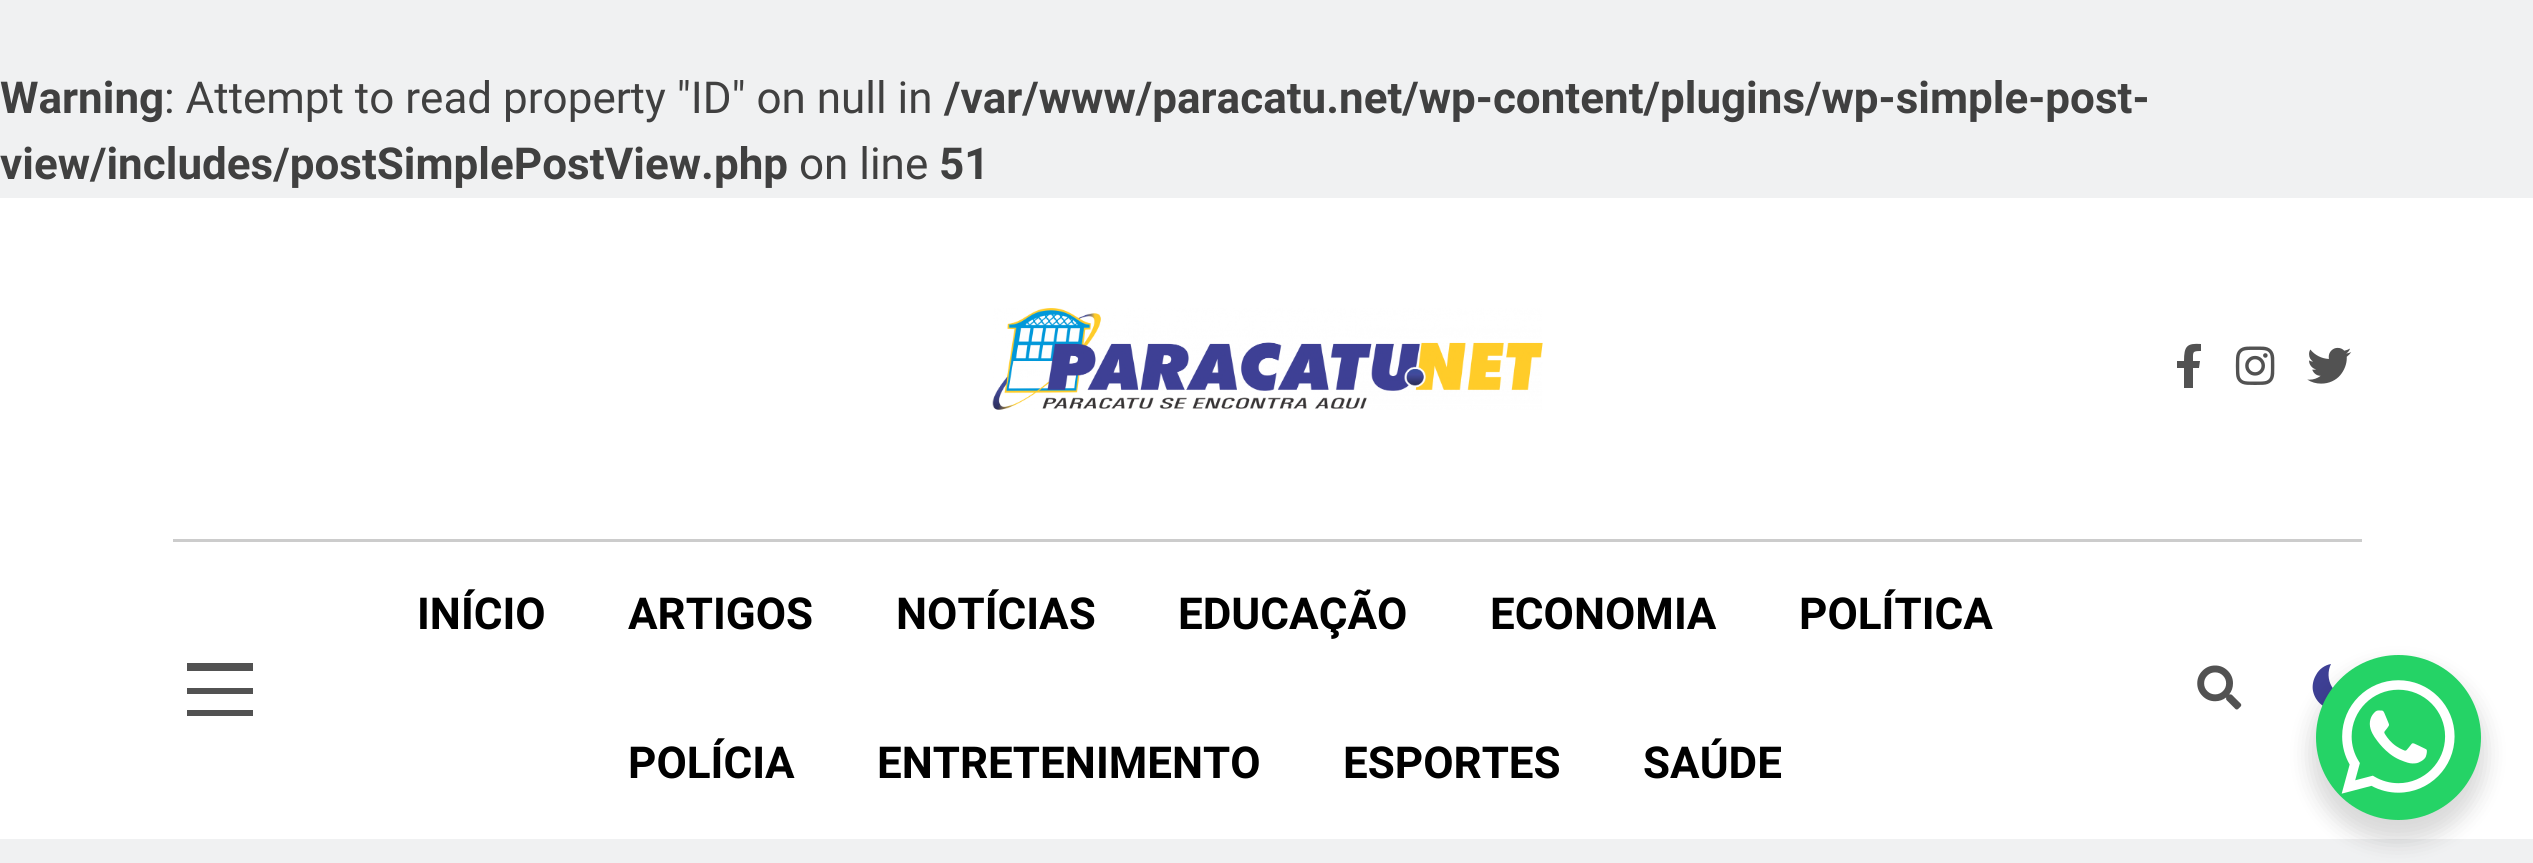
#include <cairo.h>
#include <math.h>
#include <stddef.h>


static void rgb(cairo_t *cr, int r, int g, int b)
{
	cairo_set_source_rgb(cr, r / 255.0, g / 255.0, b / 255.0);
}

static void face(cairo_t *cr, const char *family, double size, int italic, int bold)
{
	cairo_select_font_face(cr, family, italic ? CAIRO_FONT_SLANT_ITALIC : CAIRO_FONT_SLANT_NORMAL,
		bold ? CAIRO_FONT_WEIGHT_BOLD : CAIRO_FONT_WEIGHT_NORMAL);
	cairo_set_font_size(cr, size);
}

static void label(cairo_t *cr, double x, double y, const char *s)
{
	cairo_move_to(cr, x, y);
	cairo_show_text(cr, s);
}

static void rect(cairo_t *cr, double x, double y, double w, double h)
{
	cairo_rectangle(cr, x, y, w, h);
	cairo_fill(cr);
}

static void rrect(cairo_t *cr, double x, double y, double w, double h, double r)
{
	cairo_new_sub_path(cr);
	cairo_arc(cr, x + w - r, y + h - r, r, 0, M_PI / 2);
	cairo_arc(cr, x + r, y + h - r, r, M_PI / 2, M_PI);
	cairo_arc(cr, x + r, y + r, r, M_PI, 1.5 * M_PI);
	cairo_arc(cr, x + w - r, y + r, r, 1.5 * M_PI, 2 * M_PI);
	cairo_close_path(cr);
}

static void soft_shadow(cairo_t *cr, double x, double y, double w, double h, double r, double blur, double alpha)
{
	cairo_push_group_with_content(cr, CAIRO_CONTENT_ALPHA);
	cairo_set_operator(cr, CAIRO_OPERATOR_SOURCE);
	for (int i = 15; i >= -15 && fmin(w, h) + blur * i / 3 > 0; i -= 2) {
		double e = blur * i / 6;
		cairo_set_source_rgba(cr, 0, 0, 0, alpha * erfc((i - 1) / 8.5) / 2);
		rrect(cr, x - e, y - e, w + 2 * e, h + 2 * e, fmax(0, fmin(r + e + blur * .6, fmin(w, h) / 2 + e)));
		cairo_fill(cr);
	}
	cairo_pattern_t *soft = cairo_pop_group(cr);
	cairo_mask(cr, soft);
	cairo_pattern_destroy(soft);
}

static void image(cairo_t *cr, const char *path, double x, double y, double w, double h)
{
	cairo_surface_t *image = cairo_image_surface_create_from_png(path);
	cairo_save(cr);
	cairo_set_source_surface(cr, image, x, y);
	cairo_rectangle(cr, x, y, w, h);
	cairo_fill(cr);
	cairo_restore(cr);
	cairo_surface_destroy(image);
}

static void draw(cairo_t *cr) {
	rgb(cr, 240, 241, 242);
	cairo_paint(cr);
	face(cr, "Roboto", 44, 0, 1);
	rgb(cr, 64, 64, 64);
	label(cr, 0, 113, "Warning");
	face(cr, "Roboto", 44, 0, 0);
	label(cr, 164, 113, ": Attempt to read property \"ID\" on null in");
	face(cr, "Roboto", 44, 0, 1);
	label(cr, 944, 113, "/var/www/paracatu.net/wp-content/plugins/wp-simple-post-");
	label(cr, 0, 179, "view/includes/postSimplePostView.php");
	face(cr, "Roboto", 44, 0, 0);
	label(cr, 799, 179, "on line");
	face(cr, "Roboto", 44, 0, 1);
	label(cr, 939, 179, "51");
	rgb(cr, 255, 255, 255);
	rect(cr, 0, 198, 2533, 641);
	image(cr, "image0.png", 992, 308, 551, 102);
	rgb(cr, 82, 82, 82);
	cairo_new_path(cr);
	cairo_move_to(cr, 2199, 368);
	cairo_line_to(cr, 2193, 368);
	cairo_line_to(cr, 2193, 388);
	cairo_line_to(cr, 2184, 388);
	cairo_line_to(cr, 2184, 368);
	cairo_line_to(cr, 2177, 368);
	cairo_line_to(cr, 2177, 361);
	cairo_line_to(cr, 2184, 361);
	cairo_curve_to(cr, 2184, 346, 2187, 343, 2201, 344);
	cairo_line_to(cr, 2201, 351);
	cairo_curve_to(cr, 2192, 351, 2193, 352, 2193, 361);
	cairo_line_to(cr, 2200, 361);
	cairo_close_path(cr);
	cairo_fill(cr);
	image(cr, "image1.png", 2235, 346, 40, 39);
	image(cr, "image2.png", 2307, 347, 45, 37);
	rgb(cr, 204, 204, 204);
	rect(cr, 173, 539, 2189, 3);
	rgb(cr, 82, 82, 82);
	rect(cr, 187, 663, 66, 8);
	rect(cr, 187, 688, 66, 6);
	rect(cr, 187, 710, 66, 6);
	rgb(cr, 0, 0, 0);
	label(cr, 417, 629, "INÍCIO");
	label(cr, 628, 629, "ARTIGOS");
	label(cr, 896, 629, "NOTÍCIAS");
	label(cr, 1178, 629, "EDUCAÇÃO");
	label(cr, 1490, 629, "ECONOMIA");
	label(cr, 1799, 629, "POLÍTICA");
	label(cr, 628, 778, "POLÍCIA");
	label(cr, 877, 778, "ENTRETENIMENTO");
	label(cr, 1343, 778, "ESPORTES");
	label(cr, 1643, 778, "SAÚDE");
	image(cr, "image3.png", 2197, 665, 45, 45);
	rgb(cr, 62, 64, 149);
	cairo_new_path(cr);
	cairo_move_to(cr, 2360, 696);
	cairo_line_to(cr, 2355, 697);
	cairo_curve_to(cr, 2332, 699, 2324, 678, 2331, 664);
	cairo_curve_to(cr, 2325, 665, 2319, 669, 2316, 675);
	cairo_curve_to(cr, 2313, 680, 2312, 686, 2313, 691);
	cairo_curve_to(cr, 2318, 714, 2350, 717, 2360, 696);
	cairo_close_path(cr);
	cairo_fill(cr);
	rgb(cr, 0, 0, 0);
	soft_shadow(cr, 2310, 666, 176, 176, 88, 11, 0.15);
	rgb(cr, 37, 211, 102);
	cairo_arc(cr, 2398.5, 737.5, 82.5, 0, 2 * M_PI);
	cairo_fill(cr);
	image(cr, "image4.png", 2341, 680, 114, 114);
}

int main(void) {
	cairo_surface_t *surface = cairo_image_surface_create(CAIRO_FORMAT_RGB24, 2533, 863);
	cairo_t *cr = cairo_create(surface);
	cairo_font_options_t *options = cairo_font_options_create();
	cairo_font_options_set_hint_metrics(options, CAIRO_HINT_METRICS_OFF);
	cairo_font_options_set_hint_style(options, CAIRO_HINT_STYLE_NONE);
	cairo_set_font_options(cr, options);
	cairo_set_miter_limit(cr, 4);
	draw(cr);
	cairo_surface_write_to_png(surface, "render.png");
	cairo_font_options_destroy(options);
	cairo_destroy(cr);
	cairo_surface_destroy(surface);
	return 0;
}
